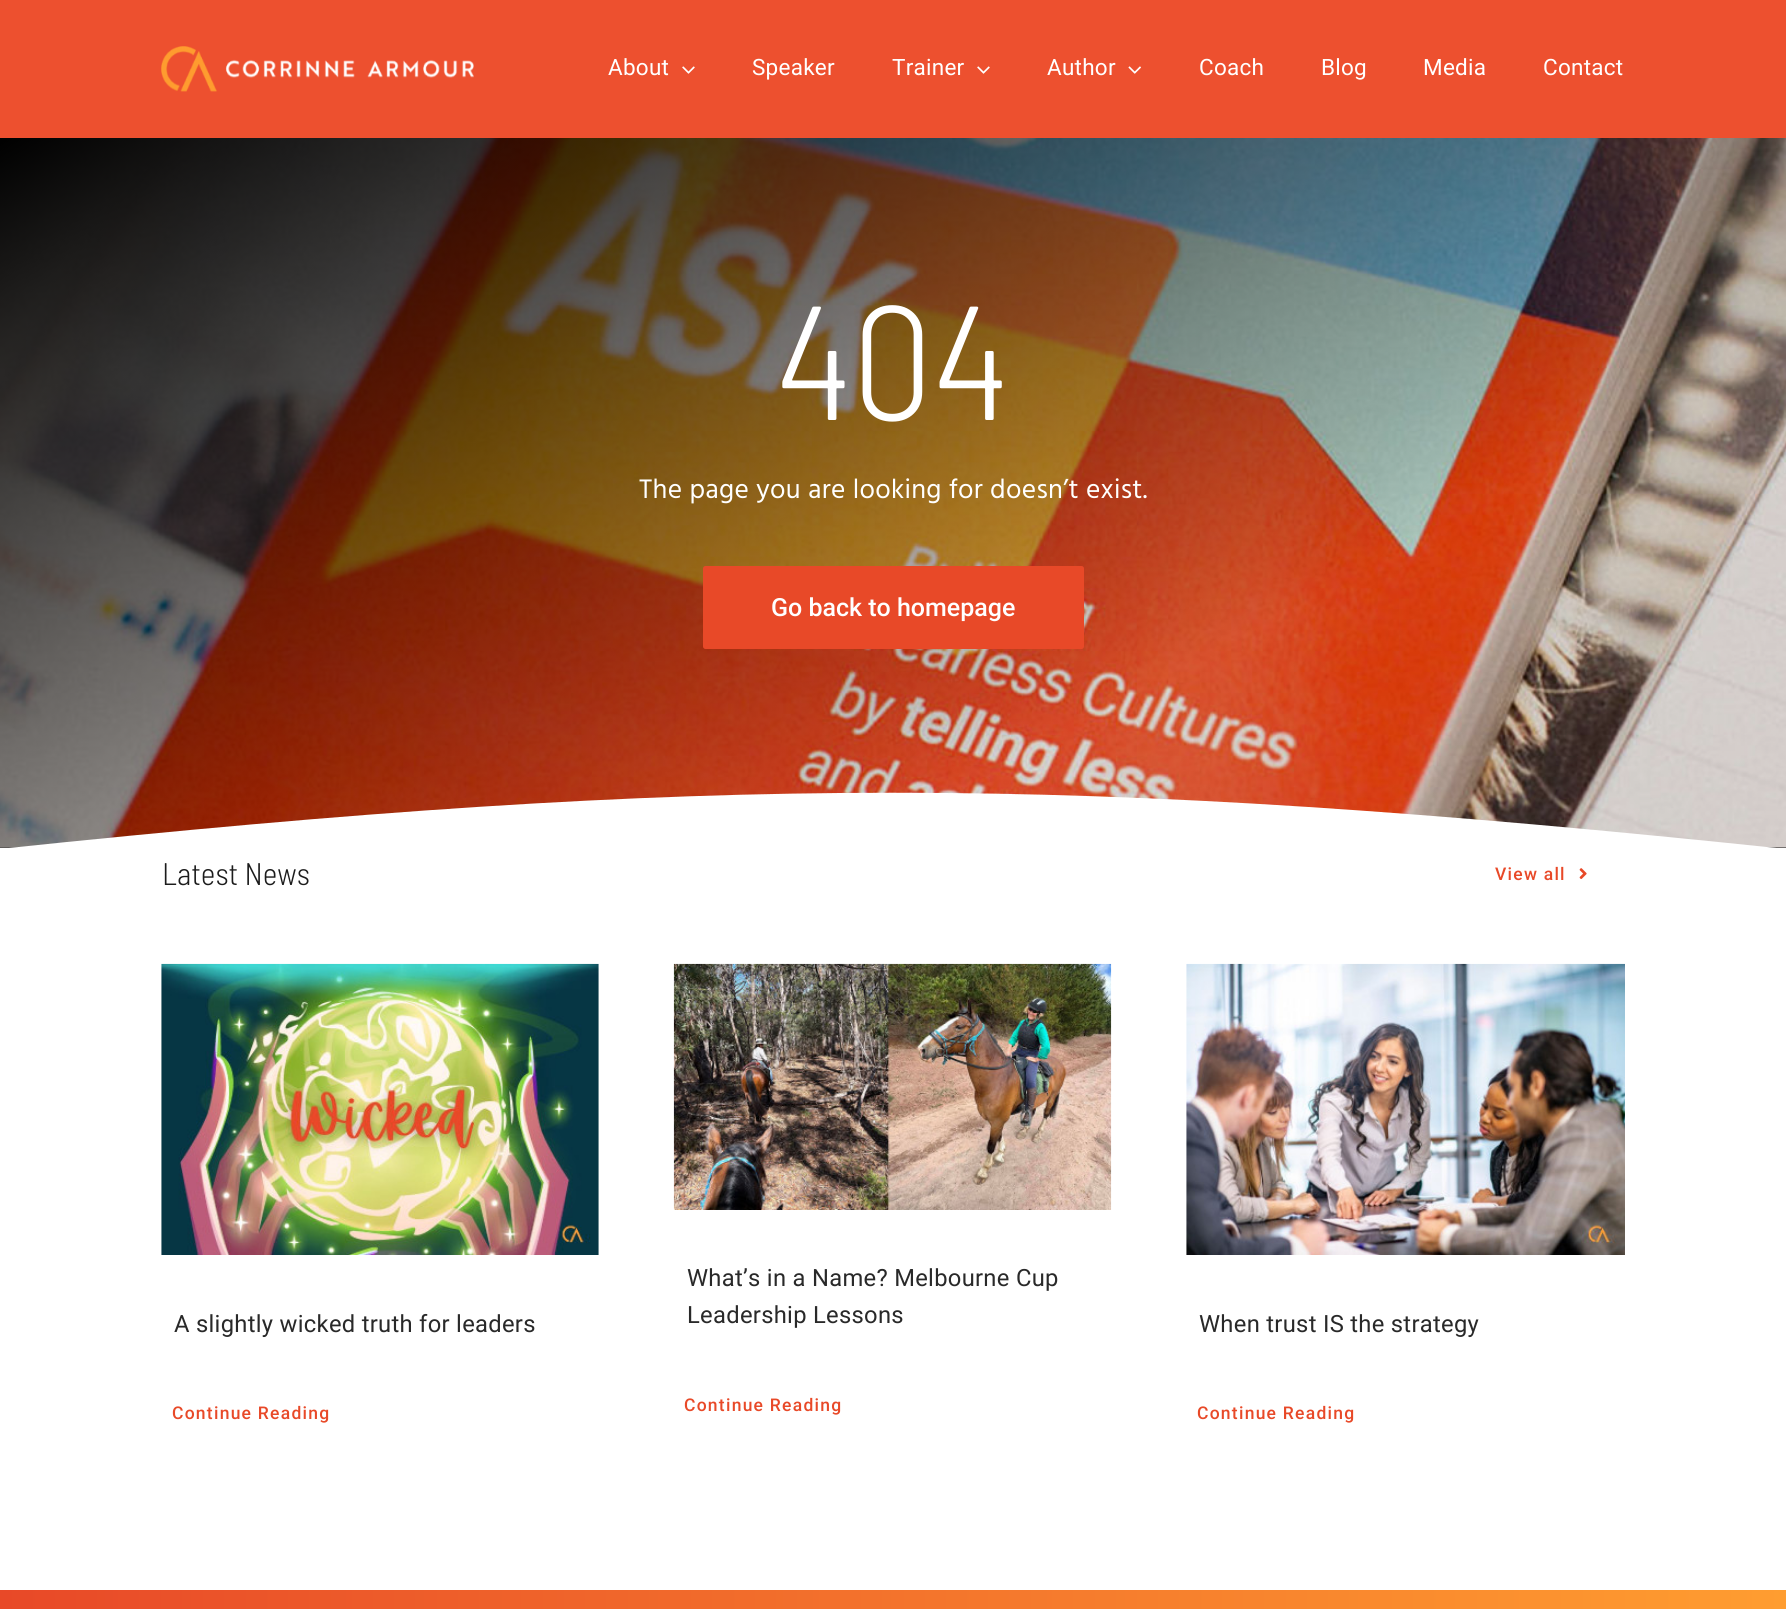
#include <cairo.h>
#include <math.h>
#include <stddef.h>


static void rgb(cairo_t *cr, int r, int g, int b)
{
	cairo_set_source_rgb(cr, r / 255.0, g / 255.0, b / 255.0);
}

static void face(cairo_t *cr, const char *family, double size, int italic, int bold)
{
	cairo_select_font_face(cr, family, italic ? CAIRO_FONT_SLANT_ITALIC : CAIRO_FONT_SLANT_NORMAL,
		bold ? CAIRO_FONT_WEIGHT_BOLD : CAIRO_FONT_WEIGHT_NORMAL);
	cairo_set_font_size(cr, size);
}

static void label(cairo_t *cr, double x, double y, const char *s)
{
	cairo_move_to(cr, x, y);
	cairo_show_text(cr, s);
}

static void tracked(cairo_t *cr, double x, double y, const char *s, double letter, double word)
{
	cairo_move_to(cr, x, y);
	while (*s) {
		char ch[5] = {0};
		int n = 0;
		do ch[n++] = *s++; while ((*s & 0xC0) == 0x80);
		cairo_show_text(cr, ch);
		cairo_rel_move_to(cr, letter + word * (*ch == ' '), 0);
	}
}

static void rect(cairo_t *cr, double x, double y, double w, double h)
{
	cairo_rectangle(cr, x, y, w, h);
	cairo_fill(cr);
}

static void rrect(cairo_t *cr, double x, double y, double w, double h, double r)
{
	cairo_new_sub_path(cr);
	cairo_arc(cr, x + w - r, y + h - r, r, 0, M_PI / 2);
	cairo_arc(cr, x + r, y + h - r, r, M_PI / 2, M_PI);
	cairo_arc(cr, x + r, y + r, r, M_PI, 1.5 * M_PI);
	cairo_arc(cr, x + w - r, y + r, r, 1.5 * M_PI, 2 * M_PI);
	cairo_close_path(cr);
}

static void image(cairo_t *cr, const char *path, double x, double y, double w, double h)
{
	cairo_surface_t *image = cairo_image_surface_create_from_png(path);
	cairo_save(cr);
	cairo_set_source_surface(cr, image, x, y);
	cairo_rectangle(cr, x, y, w, h);
	cairo_fill(cr);
	cairo_restore(cr);
	cairo_surface_destroy(image);
}

static void draw(cairo_t *cr) {
	cairo_pattern_t *gradient;
	rgb(cr, 255, 255, 255);
	cairo_paint(cr);
	rgb(cr, 237, 80, 47);
	rect(cr, 0, 0, 1786, 138);
	image(cr, "image0.png", 161, 46, 313, 46);
	face(cr, "Roboto", 22.5, 0, 0);
	rgb(cr, 255, 255, 255);
	tracked(cr, 608, 75, "About", 0.25, 0);
	image(cr, "image1.png", 682, 66, 13, 8);
	tracked(cr, 752, 75, "Speaker", 0.25, 0);
	tracked(cr, 892, 75, "Trainer", 0.25, 0);
	image(cr, "image1.png", 977, 66, 13, 8);
	tracked(cr, 1047, 75, "Author", 0.25, 0);
	image(cr, "image2.png", 1128, 66, 13, 8);
	tracked(cr, 1199, 75, "Coach", 0.25, 0);
	tracked(cr, 1321, 75, "Blog", 0.25, 0);
	tracked(cr, 1423, 75, "Media", 0.25, 0);
	tracked(cr, 1543, 75, "Contact", 0.25, 0);
	rgb(cr, 0, 0, 0);
	rect(cr, 0, 847, 1786, 1);
	image(cr, "image3.png", 0, 138, 1786, 710);
	face(cr, "Barlow Semi Condensed Light", 162, 0, 0);
	rgb(cr, 255, 255, 255);
	label(cr, 776, 420, "404");
	face(cr, "Hind", 27.5, 0, 0);
	tracked(cr, 639, 498, "The page you are looking for doesn’t exist.", 0.3, 0);
	rgb(cr, 232, 73, 40);
	rrect(cr, 703, 566, 381, 83, 2.5);
	cairo_fill(cr);
	face(cr, "Roboto Medium", 25, 0, 0);
	rgb(cr, 255, 255, 255);
	label(cr, 771, 616, "Go back to homepage");
	cairo_new_path(cr);
	cairo_move_to(cr, -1, 849);
	cairo_curve_to(cr, 714, 774, 1071, 774, 1786, 849);
	cairo_close_path(cr);
	cairo_fill(cr);
	face(cr, "Barlow Semi Condensed Light", 31.25, 0, 0);
	rgb(cr, 28, 28, 28);
	label(cr, 162, 885, "Latest News");
	face(cr, "Roboto Medium", 17.5, 0, 0);
	rgb(cr, 232, 73, 40);
	tracked(cr, 1495, 880, "View all", 1.25, 0);
	image(cr, "image4.png", 1579, 868, 8, 11);
	image(cr, "image5.png", 161, 963, 438, 292);
	face(cr, "Roboto", 23.75, 0, 0);
	rgb(cr, 41, 41, 41);
	tracked(cr, 174, 1332, "A slightly wicked truth for leaders", 0.3, 0);
	face(cr, "Roboto Medium", 17.5, 0, 0);
	rgb(cr, 232, 73, 40);
	tracked(cr, 172, 1419, "Continue Reading", 1.25, 0);
	image(cr, "image6.png", 673, 963, 439, 247);
	face(cr, "Roboto", 23.75, 0, 0);
	rgb(cr, 41, 41, 41);
	tracked(cr, 687, 1286, "What’s in a Name? Melbourne Cup", 0.3, 0);
	tracked(cr, 687, 1323, "Leadership Lessons", 0.3, 0);
	face(cr, "Roboto Medium", 17.5, 0, 0);
	rgb(cr, 232, 73, 40);
	tracked(cr, 684, 1411, "Continue Reading", 1.25, 0);
	image(cr, "image7.png", 1186, 963, 439, 292);
	face(cr, "Roboto", 23.75, 0, 0);
	rgb(cr, 41, 41, 41);
	tracked(cr, 1199, 1332, "When trust IS the strategy", 0.3, 0);
	face(cr, "Roboto Medium", 17.5, 0, 0);
	rgb(cr, 232, 73, 40);
	tracked(cr, 1197, 1419, "Continue Reading", 1.25, 0);
	gradient = cairo_pattern_create_linear(0, 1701, 1786, 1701);
	cairo_pattern_add_color_stop_rgba(gradient, 0, 0.91, 0.286, 0.157, 1);
	cairo_pattern_add_color_stop_rgba(gradient, 1, 1, 0.616, 0.188, 1);
	cairo_set_source(cr, gradient);
	cairo_pattern_destroy(gradient);
	rect(cr, 0, 1590, 1786, 19);
}

int main(void) {
	cairo_surface_t *surface = cairo_image_surface_create(CAIRO_FORMAT_RGB24, 1786, 1609);
	cairo_t *cr = cairo_create(surface);
	cairo_font_options_t *options = cairo_font_options_create();
	cairo_font_options_set_hint_metrics(options, CAIRO_HINT_METRICS_OFF);
	cairo_font_options_set_hint_style(options, CAIRO_HINT_STYLE_NONE);
	cairo_set_font_options(cr, options);
	cairo_set_miter_limit(cr, 4);
	draw(cr);
	cairo_surface_write_to_png(surface, "render.png");
	cairo_font_options_destroy(options);
	cairo_destroy(cr);
	cairo_surface_destroy(surface);
	return 0;
}
